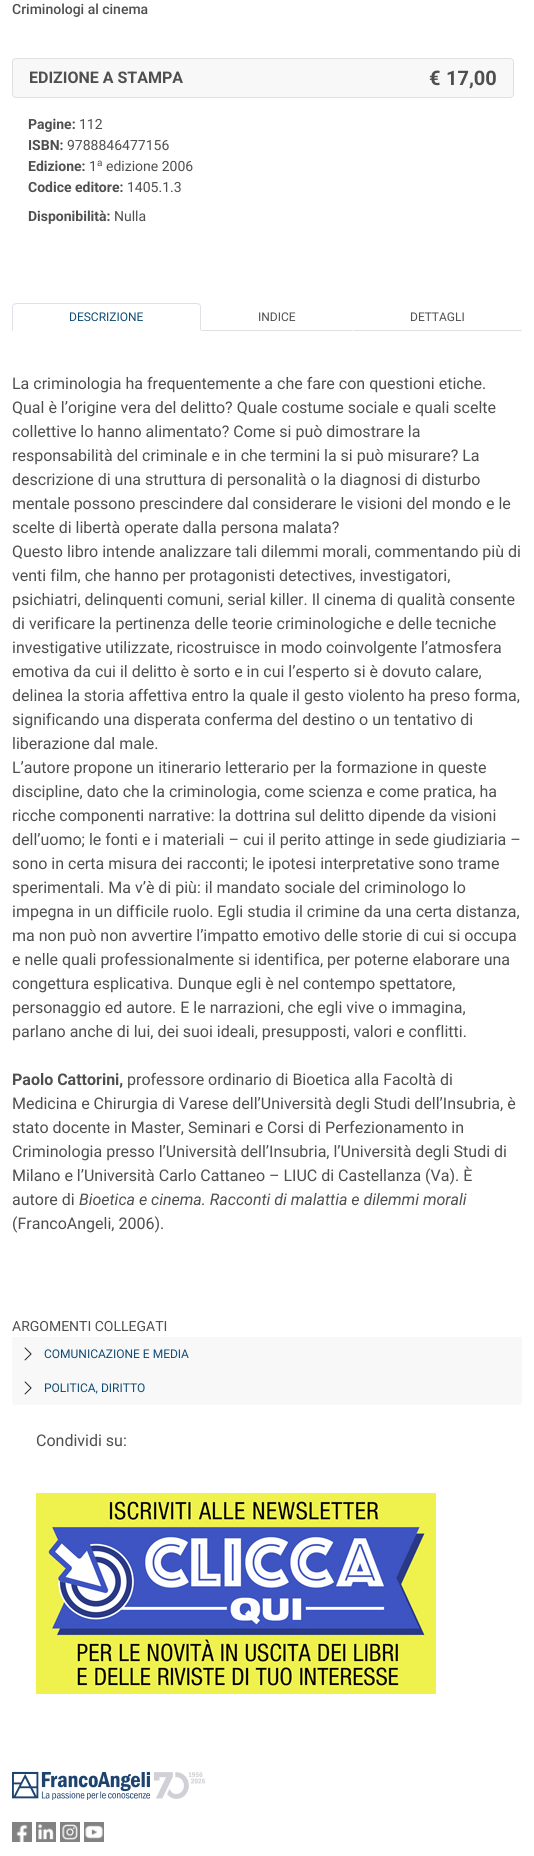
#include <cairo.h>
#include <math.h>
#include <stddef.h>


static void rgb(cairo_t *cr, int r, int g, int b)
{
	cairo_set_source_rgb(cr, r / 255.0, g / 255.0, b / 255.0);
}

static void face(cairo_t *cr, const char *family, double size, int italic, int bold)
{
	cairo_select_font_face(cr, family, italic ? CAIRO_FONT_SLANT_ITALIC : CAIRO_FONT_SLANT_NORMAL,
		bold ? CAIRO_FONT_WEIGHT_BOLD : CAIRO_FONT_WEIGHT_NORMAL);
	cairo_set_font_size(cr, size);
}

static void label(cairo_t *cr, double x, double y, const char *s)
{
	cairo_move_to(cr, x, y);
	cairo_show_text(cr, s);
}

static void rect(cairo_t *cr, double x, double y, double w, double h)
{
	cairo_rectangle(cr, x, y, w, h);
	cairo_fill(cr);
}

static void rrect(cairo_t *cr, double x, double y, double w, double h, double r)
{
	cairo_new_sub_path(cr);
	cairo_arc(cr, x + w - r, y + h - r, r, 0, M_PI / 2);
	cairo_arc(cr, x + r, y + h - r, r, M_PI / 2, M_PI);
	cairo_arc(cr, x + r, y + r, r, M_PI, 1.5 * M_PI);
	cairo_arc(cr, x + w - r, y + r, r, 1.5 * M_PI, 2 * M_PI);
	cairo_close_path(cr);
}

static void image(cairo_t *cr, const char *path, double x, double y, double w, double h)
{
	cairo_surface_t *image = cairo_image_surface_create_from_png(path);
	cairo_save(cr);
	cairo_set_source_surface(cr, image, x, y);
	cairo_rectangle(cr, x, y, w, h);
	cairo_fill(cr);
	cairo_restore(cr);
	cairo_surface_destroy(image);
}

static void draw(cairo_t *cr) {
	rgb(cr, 255, 255, 255);
	cairo_paint(cr);
	face(cr, "Roboto Medium", 14, 0, 0);
	rgb(cr, 79, 79, 79);
	label(cr, 12, 14, "Criminologi al cinema");
	rgb(cr, 248, 248, 248);
	rrect(cr, 12.5, 58.5, 501, 39, 3.5);
	cairo_fill_preserve(cr);
	rgb(cr, 224, 224, 224);
	cairo_set_line_width(cr, 1);
	cairo_stroke(cr);
	face(cr, "Roboto", 16, 0, 1);
	rgb(cr, 79, 79, 79);
	label(cr, 29, 83, "EDIZIONE A STAMPA");
	face(cr, "Roboto", 20, 0, 1);
	label(cr, 429, 85, "€");
	label(cr, 446, 85, "17,00");
	face(cr, "Roboto", 14, 0, 1);
	label(cr, 28, 129, "Pagine:");
	face(cr, "Roboto", 14, 0, 0);
	label(cr, 79, 129, "112");
	face(cr, "Roboto", 14, 0, 1);
	label(cr, 28, 150, "ISBN:");
	face(cr, "Roboto", 14, 0, 0);
	label(cr, 67, 150, "9788846477156");
	face(cr, "Roboto", 14, 0, 1);
	label(cr, 28, 171, "Edizione:");
	face(cr, "Roboto", 14, 0, 0);
	label(cr, 89, 171, "1");
	face(cr, "Roboto", 10, 0, 0);
	label(cr, 97, 166, "a");
	face(cr, "Roboto", 14, 0, 0);
	label(cr, 106, 171, "edizione 2006");
	face(cr, "Roboto", 14, 0, 1);
	label(cr, 28, 192, "Codice editore:");
	face(cr, "Roboto", 14, 0, 0);
	label(cr, 127, 192, "1405.1.3");
	face(cr, "Roboto", 14, 0, 1);
	label(cr, 28, 221, "Disponibilità:");
	face(cr, "Roboto", 14, 0, 0);
	label(cr, 114, 221, "Nulla");
	rgb(cr, 222, 226, 230);
	cairo_new_path(cr);
	cairo_move_to(cr, 16, 303);
	cairo_line_to(cr, 13, 304);
	cairo_line_to(cr, 14, 305);
	cairo_line_to(cr, 16, 304);
	cairo_line_to(cr, 197, 304);
	cairo_line_to(cr, 199, 305);
	cairo_line_to(cr, 200, 304);
	cairo_line_to(cr, 197, 303);
	cairo_close_path(cr);
	cairo_fill(cr);
	cairo_new_path(cr);
	cairo_move_to(cr, 201, 331);
	cairo_line_to(cr, 201, 307);
	cairo_curve_to(cr, 201, 306, 200.5, 305, 200, 304);
	cairo_line_to(cr, 199, 305);
	cairo_curve_to(cr, 200, 305, 200, 306, 200, 307);
	cairo_line_to(cr, 200, 330);
	cairo_close_path(cr);
	cairo_fill(cr);
	rgb(cr, 255, 255, 255);
	cairo_new_path(cr);
	cairo_move_to(cr, 201, 331);
	cairo_line_to(cr, 200, 330);
	cairo_line_to(cr, 13, 330);
	cairo_line_to(cr, 12, 331);
	cairo_close_path(cr);
	cairo_fill(cr);
	rgb(cr, 222, 226, 230);
	cairo_new_path(cr);
	cairo_move_to(cr, 12, 331);
	cairo_line_to(cr, 13, 330);
	cairo_line_to(cr, 13, 307);
	cairo_curve_to(cr, 13, 306, 13, 305, 14, 305);
	cairo_line_to(cr, 13, 304);
	cairo_curve_to(cr, 12.5, 305, 12, 306, 12, 307);
	cairo_close_path(cr);
	cairo_fill(cr);
	face(cr, "Roboto", 12, 0, 0);
	rgb(cr, 15, 76, 117);
	label(cr, 69, 321, "DESCRIZIONE");
	rgb(cr, 224, 224, 224);
	cairo_new_path(cr);
	cairo_move_to(cr, 353, 331);
	cairo_line_to(cr, 352, 330);
	cairo_line_to(cr, 202, 330);
	cairo_line_to(cr, 201, 331);
	cairo_close_path(cr);
	cairo_fill(cr);
	rgb(cr, 79, 79, 79);
	label(cr, 258, 321, "INDICE");
	rgb(cr, 224, 224, 224);
	cairo_new_path(cr);
	cairo_move_to(cr, 522, 331);
	cairo_line_to(cr, 521, 330);
	cairo_line_to(cr, 354, 330);
	cairo_line_to(cr, 353, 331);
	cairo_close_path(cr);
	cairo_fill(cr);
	rgb(cr, 79, 79, 79);
	label(cr, 410, 321, "DETTAGLI");
	face(cr, "Roboto", 16, 0, 0);
	label(cr, 12, 389, "La criminologia ha frequentemente a che fare con questioni etiche.");
	label(cr, 12, 413, "Qual è l’origine vera del delitto? Quale costume sociale e quali scelte");
	label(cr, 12, 437, "collettive lo hanno alimentato? Come si può dimostrare la");
	label(cr, 12, 461, "responsabilità del criminale e in che termini la si può misurare? La");
	label(cr, 12, 485, "descrizione di una struttura di personalità o la diagnosi di disturbo");
	label(cr, 12, 509, "mentale possono prescindere dal considerare le visioni del mondo e le");
	label(cr, 12, 533, "scelte di libertà operate dalla persona malata?");
	label(cr, 12, 557, "Questo libro intende analizzare tali dilemmi morali, commentando più di");
	label(cr, 12, 581, "venti film, che hanno per protagonisti detectives, investigatori,");
	label(cr, 12, 605, "psichiatri, delinquenti comuni, serial killer. Il cinema di qualità consente");
	label(cr, 12, 629, "di verificare la pertinenza delle teorie criminologiche e delle tecniche");
	label(cr, 12, 653, "investigative utilizzate, ricostruisce in modo coinvolgente l’atmosfera");
	label(cr, 12, 677, "emotiva da cui il delitto è sorto e in cui l’esperto si è dovuto calare,");
	label(cr, 12, 701, "delinea la storia affettiva entro la quale il gesto violento ha preso forma,");
	label(cr, 12, 725, "significando una disperata conferma del destino o un tentativo di");
	label(cr, 12, 749, "liberazione dal male.");
	label(cr, 12, 773, "L’autore propone un itinerario letterario per la formazione in queste");
	label(cr, 12, 797, "discipline, dato che la criminologia, come scienza e come pratica, ha");
	label(cr, 12, 821, "ricche componenti narrative: la dottrina sul delitto dipende da visioni");
	label(cr, 12, 845, "dell’uomo; le fonti e i materiali – cui il perito attinge in sede giudiziaria –");
	label(cr, 12, 869, "sono in certa misura dei racconti; le ipotesi interpretative sono trame");
	label(cr, 12, 893, "sperimentali. Ma v’è di più: il mandato sociale del criminologo lo");
	label(cr, 12, 917, "impegna in un difficile ruolo. Egli studia il crimine da una certa distanza,");
	label(cr, 12, 941, "ma non può non avvertire l’impatto emotivo delle storie di cui si occupa");
	label(cr, 12, 965, "e nelle quali professionalmente si identifica, per poterne elaborare una");
	label(cr, 12, 989, "congettura esplicativa. Dunque egli è nel contempo spettatore,");
	label(cr, 12, 1013, "personaggio ed autore. E le narrazioni, che egli vive o immagina,");
	label(cr, 12, 1037, "parlano anche di lui, dei suoi ideali, presupposti, valori e conflitti.");
	face(cr, "Roboto", 16, 0, 1);
	label(cr, 12, 1085, "Paolo Cattorini,");
	face(cr, "Roboto", 16, 0, 0);
	label(cr, 127, 1085, "professore ordinario di Bioetica alla Facoltà di");
	label(cr, 12, 1109, "Medicina e Chirurgia di Varese dell’Università degli Studi dell’Insubria, è");
	label(cr, 12, 1133, "stato docente in Master, Seminari e Corsi di Perfezionamento in");
	label(cr, 12, 1157, "Criminologia presso l’Università dell’Insubria, l’Università degli Studi di");
	label(cr, 12, 1181, "Milano e l’Università Carlo Cattaneo – LIUC di Castellanza (Va). È");
	label(cr, 12, 1205, "autore di");
	face(cr, "Roboto", 16, 1, 0);
	label(cr, 79, 1205, "Bioetica e cinema. Racconti di malattia e dilemmi morali");
	face(cr, "Roboto", 16, 0, 0);
	label(cr, 12, 1229, "(FrancoAngeli, 2006).");
	face(cr, "Roboto", 14, 0, 0);
	label(cr, 12, 1331, "ARGOMENTI COLLEGATI");
	rgb(cr, 248, 248, 248);
	rect(cr, 12, 1337, 510, 34);
	image(cr, "image0.png", 24, 1347, 8, 14);
	face(cr, "Roboto", 12, 0, 0);
	rgb(cr, 15, 76, 117);
	label(cr, 44, 1358, "COMUNICAZIONE E MEDIA");
	rgb(cr, 248, 248, 248);
	cairo_new_path(cr);
	cairo_move_to(cr, 12, 1371);
	cairo_line_to(cr, 522, 1371);
	cairo_line_to(cr, 522, 1402);
	cairo_curve_to(cr, 522, 1403.5, 520.5, 1405, 519, 1405);
	cairo_line_to(cr, 15, 1405);
	cairo_curve_to(cr, 13.5, 1405, 12, 1403.5, 12, 1402);
	cairo_close_path(cr);
	cairo_fill(cr);
	image(cr, "image0.png", 24, 1381, 8, 14);
	rgb(cr, 15, 76, 117);
	label(cr, 44, 1392, "POLITICA, DIRITTO");
	face(cr, "Roboto", 16, 0, 0);
	rgb(cr, 79, 79, 79);
	label(cr, 36, 1446, "Condividi su:");
	image(cr, "image1.png", 36, 1493, 400, 201);
	image(cr, "image2.png", 12, 1771, 193, 30);
	rgb(cr, 130, 130, 130);
	rect(cr, 12, 1822, 20, 20);
	image(cr, "image3.png", 16, 1824, 12, 18);
	rect(cr, 36, 1822, 20, 20);
	image(cr, "image4.png", 38, 1824, 16, 16);
	rect(cr, 60, 1822, 20, 20);
	image(cr, "image5.png", 62, 1824, 16, 16);
	rect(cr, 84, 1822, 20, 20);
	image(cr, "image6.png", 85, 1825, 18, 14);
}

int main(void) {
	cairo_surface_t *surface = cairo_image_surface_create(CAIRO_FORMAT_RGB24, 534, 1856);
	cairo_t *cr = cairo_create(surface);
	cairo_font_options_t *options = cairo_font_options_create();
	cairo_font_options_set_hint_metrics(options, CAIRO_HINT_METRICS_OFF);
	cairo_font_options_set_hint_style(options, CAIRO_HINT_STYLE_NONE);
	cairo_set_font_options(cr, options);
	cairo_set_miter_limit(cr, 4);
	draw(cr);
	cairo_surface_write_to_png(surface, "render.png");
	cairo_font_options_destroy(options);
	cairo_destroy(cr);
	cairo_surface_destroy(surface);
	return 0;
}
